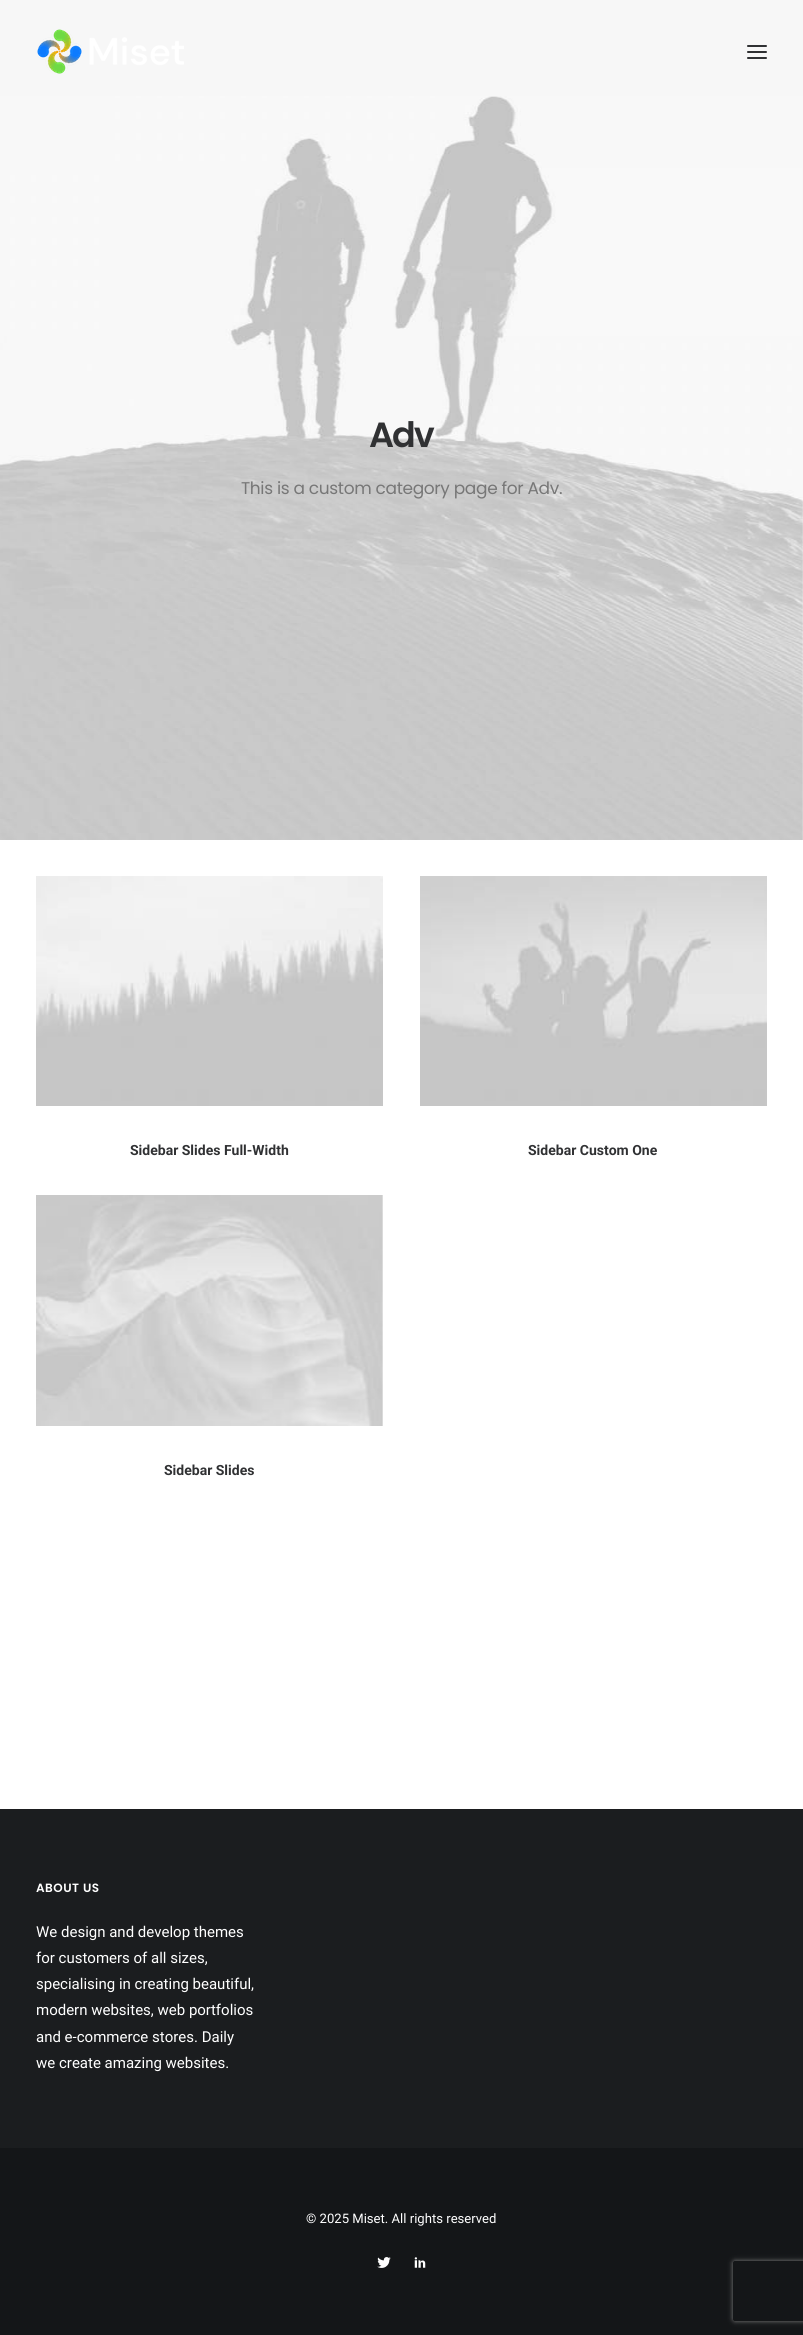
#include <cairo.h>
#include <math.h>
#include <stddef.h>


static void rgb(cairo_t *cr, int r, int g, int b)
{
	cairo_set_source_rgb(cr, r / 255.0, g / 255.0, b / 255.0);
}

static void face(cairo_t *cr, const char *family, double size, int italic, int bold)
{
	cairo_select_font_face(cr, family, italic ? CAIRO_FONT_SLANT_ITALIC : CAIRO_FONT_SLANT_NORMAL,
		bold ? CAIRO_FONT_WEIGHT_BOLD : CAIRO_FONT_WEIGHT_NORMAL);
	cairo_set_font_size(cr, size);
}

static void label(cairo_t *cr, double x, double y, const char *s)
{
	cairo_move_to(cr, x, y);
	cairo_show_text(cr, s);
}

static void tracked(cairo_t *cr, double x, double y, const char *s, double letter, double word)
{
	cairo_move_to(cr, x, y);
	while (*s) {
		char ch[5] = {0};
		int n = 0;
		do ch[n++] = *s++; while ((*s & 0xC0) == 0x80);
		cairo_show_text(cr, ch);
		cairo_rel_move_to(cr, letter + word * (*ch == ' '), 0);
	}
}

static void rect(cairo_t *cr, double x, double y, double w, double h)
{
	cairo_rectangle(cr, x, y, w, h);
	cairo_fill(cr);
}

static void rrect(cairo_t *cr, double x, double y, double w, double h, double r)
{
	cairo_new_sub_path(cr);
	cairo_arc(cr, x + w - r, y + h - r, r, 0, M_PI / 2);
	cairo_arc(cr, x + r, y + h - r, r, M_PI / 2, M_PI);
	cairo_arc(cr, x + r, y + r, r, M_PI, 1.5 * M_PI);
	cairo_arc(cr, x + w - r, y + r, r, 1.5 * M_PI, 2 * M_PI);
	cairo_close_path(cr);
}

static void soft_shadow(cairo_t *cr, double x, double y, double w, double h, double r, double blur, double alpha)
{
	cairo_push_group_with_content(cr, CAIRO_CONTENT_ALPHA);
	cairo_set_operator(cr, CAIRO_OPERATOR_SOURCE);
	for (int i = 15; i >= -15 && fmin(w, h) + blur * i / 3 > 0; i -= 2) {
		double e = blur * i / 6;
		cairo_set_source_rgba(cr, 0, 0, 0, alpha * erfc((i - 1) / 8.5) / 2);
		rrect(cr, x - e, y - e, w + 2 * e, h + 2 * e, fmax(0, fmin(r + e + blur * .6, fmin(w, h) / 2 + e)));
		cairo_fill(cr);
	}
	cairo_pattern_t *soft = cairo_pop_group(cr);
	cairo_mask(cr, soft);
	cairo_pattern_destroy(soft);
}

static void image(cairo_t *cr, const char *path, double x, double y, double w, double h)
{
	cairo_surface_t *image = cairo_image_surface_create_from_png(path);
	cairo_save(cr);
	cairo_set_source_surface(cr, image, x, y);
	cairo_rectangle(cr, x, y, w, h);
	cairo_fill(cr);
	cairo_restore(cr);
	cairo_surface_destroy(image);
}

static void draw(cairo_t *cr) {
	rgb(cr, 20, 22, 24);
	cairo_paint(cr);
	rgb(cr, 247, 247, 247);
	rect(cr, 0, 0, 803, 840);
	image(cr, "image0.png", 37, 29, 147, 45);
	rgb(cr, 48, 49, 51);
	rrect(cr, 747, 51, 20, 2, 1);
	cairo_fill(cr);
	rrect(cr, 747, 45, 20, 2, 1);
	cairo_fill(cr);
	rrect(cr, 747, 57, 20, 2, 1);
	cairo_fill(cr);
	image(cr, "image1.png", 0, 96, 803, 744);
	face(cr, "Poppins SemiBold", 35, 0, 0);
	tracked(cr, 369, 447, "Adv", -2, 0);
	face(cr, "Poppins", 17, 0, 0);
	rgb(cr, 119, 119, 119);
	tracked(cr, 241, 494, "This is a custom category page for Adv.", -0.35, 0);
	rgb(cr, 255, 255, 255);
	rect(cr, 0, 840, 803, 969);
	image(cr, "image2.png", 36, 876, 347, 230);
	face(cr, "Roboto", 14, 0, 1);
	rgb(cr, 48, 49, 51);
	label(cr, 130, 1155, "Sidebar Slides Full-Width");
	image(cr, "image3.png", 420, 876, 347, 230);
	label(cr, 528, 1155, "Sidebar Custom One");
	image(cr, "image4.png", 36, 1195, 347, 231);
	label(cr, 164, 1475, "Sidebar Slides");
	rgb(cr, 27, 29, 31);
	rect(cr, 0, 1809, 803, 339);
	face(cr, "Poppins SemiBold", 12, 0, 0);
	rgb(cr, 255, 255, 255);
	tracked(cr, 36, 1892, "ABOUT US", 0.5, 0);
	face(cr, "Roboto", 15, 0, 0);
	label(cr, 36, 1937, "We design and develop themes");
	label(cr, 36, 1963, "for customers of all sizes,");
	label(cr, 36, 1989, "specialising in creating beautiful,");
	label(cr, 36, 2015, "modern websites, web portfolios");
	label(cr, 36, 2042, "and e-commerce stores. Daily");
	label(cr, 36, 2068, "we create amazing websites.");
	face(cr, "Roboto", 13.1, 0, 0);
	label(cr, 306, 2223, "© 2025 Miset. All rights reserved");
	image(cr, "image5.png", 377, 2257, 14, 11);
	image(cr, "image6.png", 414, 2257, 12, 11);
	cairo_save(cr);
	cairo_set_fill_rule(cr, CAIRO_FILL_RULE_EVEN_ODD);
	cairo_new_path(cr);
	cairo_move_to(cr, 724, 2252);
	cairo_line_to(cr, 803, 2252);
	cairo_line_to(cr, 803, 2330);
	cairo_line_to(cr, 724, 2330);
	cairo_close_path(cr);
	cairo_move_to(cr, 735, 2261);
	cairo_line_to(cr, 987, 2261);
	cairo_curve_to(cr, 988, 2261, 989, 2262, 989, 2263);
	cairo_line_to(cr, 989, 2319);
	cairo_curve_to(cr, 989, 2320, 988, 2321, 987, 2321);
	cairo_line_to(cr, 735, 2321);
	cairo_curve_to(cr, 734, 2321, 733, 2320, 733, 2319);
	cairo_line_to(cr, 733, 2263);
	cairo_curve_to(cr, 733, 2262, 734, 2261, 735, 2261);
	cairo_close_path(cr);
	cairo_clip(cr);
	rgb(cr, 128, 128, 128);
	soft_shadow(cr, 733, 2261, 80, 60, 2, 2.5, 1);
	cairo_restore(cr);
}

int main(void) {
	cairo_surface_t *surface = cairo_image_surface_create(CAIRO_FORMAT_RGB24, 803, 2335);
	cairo_t *cr = cairo_create(surface);
	cairo_font_options_t *options = cairo_font_options_create();
	cairo_font_options_set_hint_metrics(options, CAIRO_HINT_METRICS_OFF);
	cairo_font_options_set_hint_style(options, CAIRO_HINT_STYLE_NONE);
	cairo_set_font_options(cr, options);
	cairo_set_miter_limit(cr, 4);
	draw(cr);
	cairo_surface_write_to_png(surface, "render.png");
	cairo_font_options_destroy(options);
	cairo_destroy(cr);
	cairo_surface_destroy(surface);
	return 0;
}
